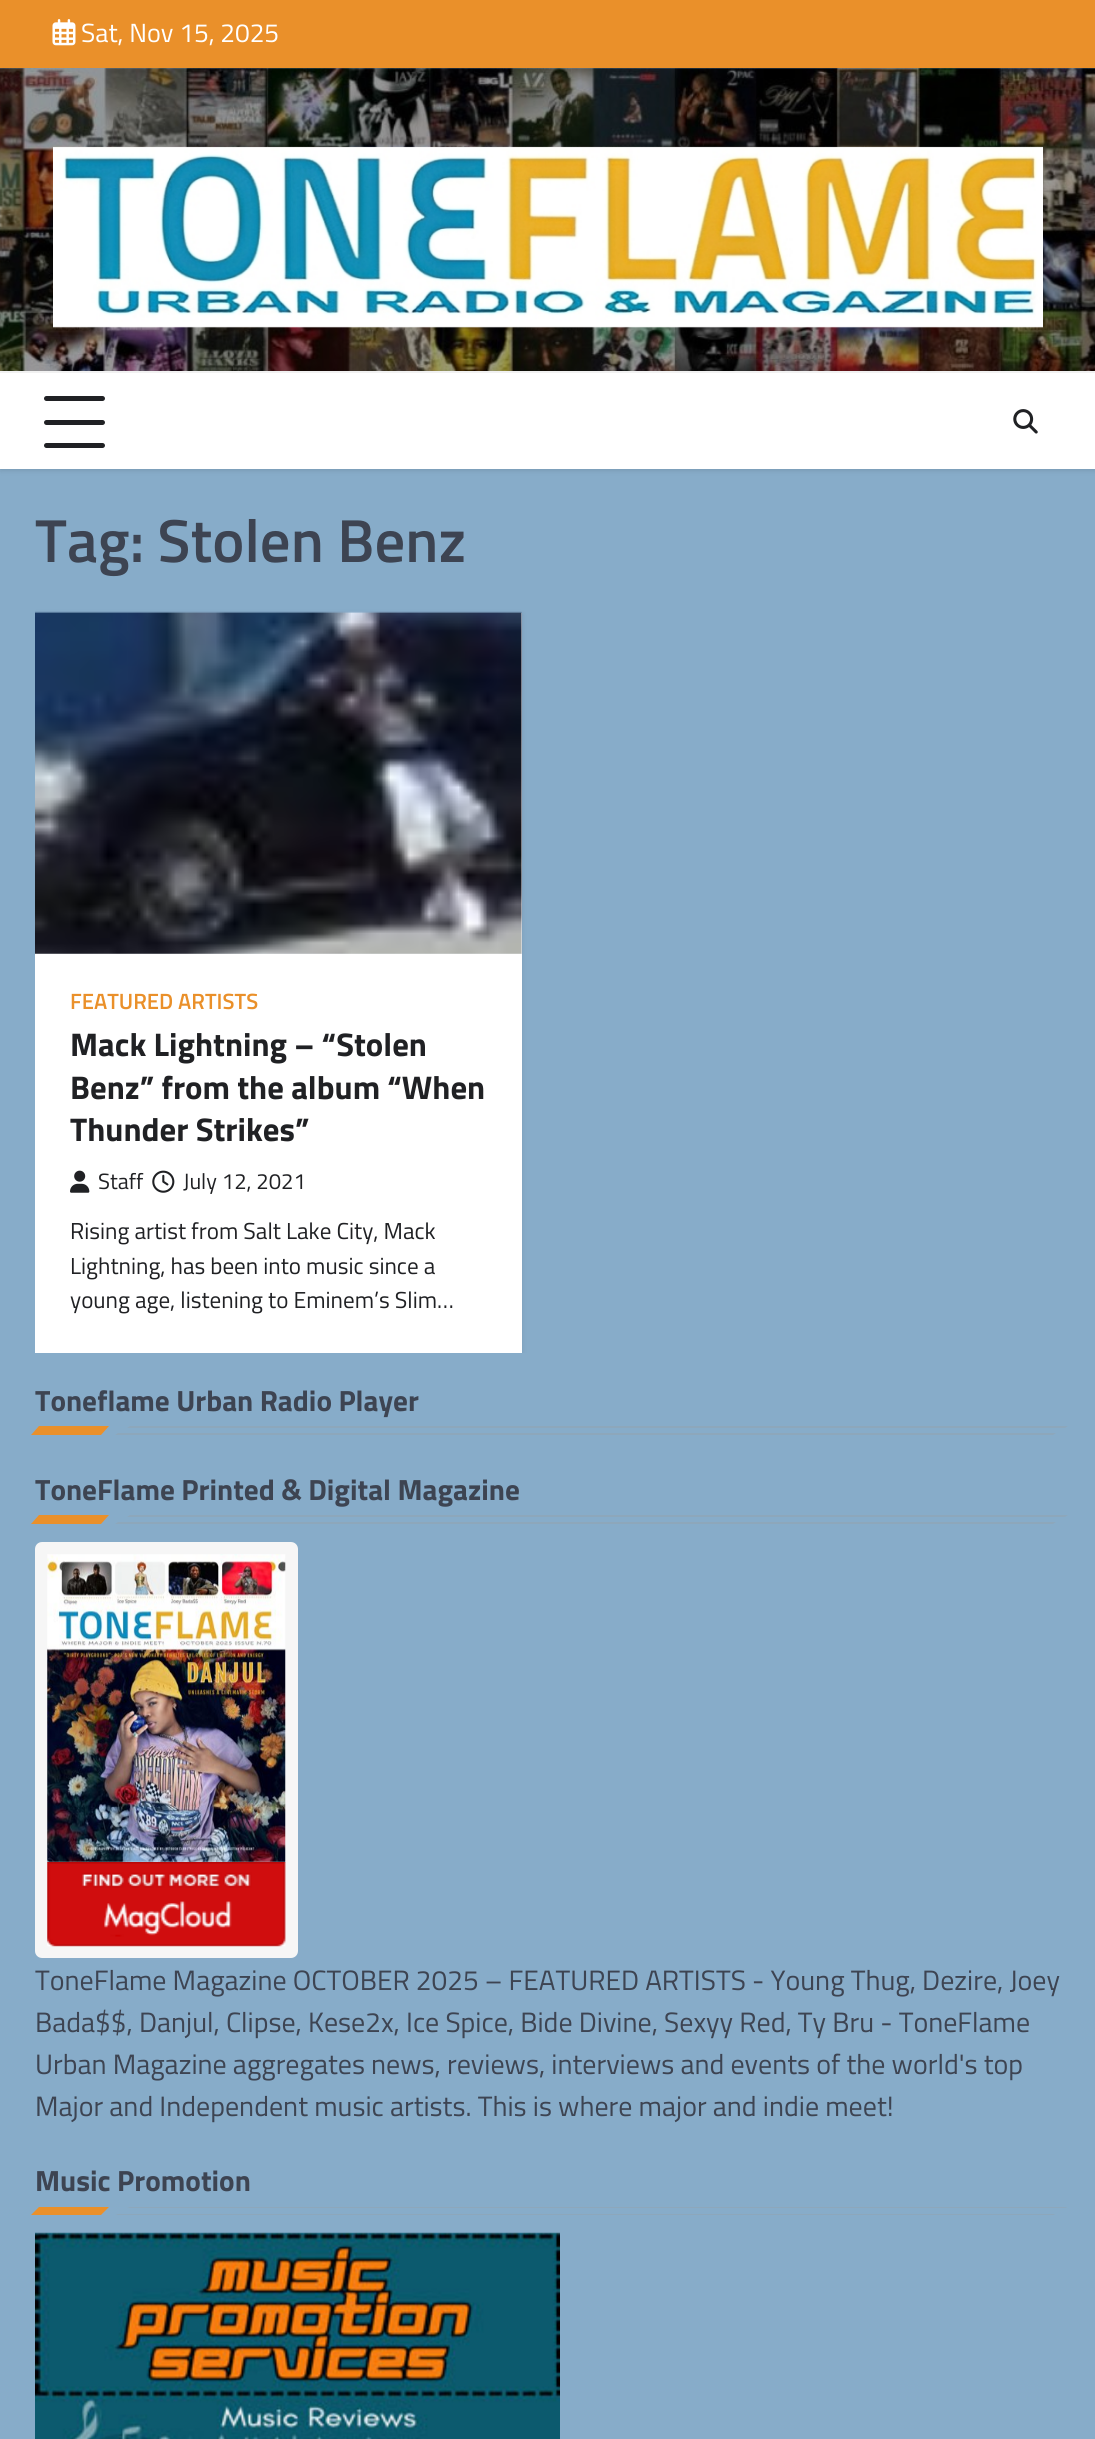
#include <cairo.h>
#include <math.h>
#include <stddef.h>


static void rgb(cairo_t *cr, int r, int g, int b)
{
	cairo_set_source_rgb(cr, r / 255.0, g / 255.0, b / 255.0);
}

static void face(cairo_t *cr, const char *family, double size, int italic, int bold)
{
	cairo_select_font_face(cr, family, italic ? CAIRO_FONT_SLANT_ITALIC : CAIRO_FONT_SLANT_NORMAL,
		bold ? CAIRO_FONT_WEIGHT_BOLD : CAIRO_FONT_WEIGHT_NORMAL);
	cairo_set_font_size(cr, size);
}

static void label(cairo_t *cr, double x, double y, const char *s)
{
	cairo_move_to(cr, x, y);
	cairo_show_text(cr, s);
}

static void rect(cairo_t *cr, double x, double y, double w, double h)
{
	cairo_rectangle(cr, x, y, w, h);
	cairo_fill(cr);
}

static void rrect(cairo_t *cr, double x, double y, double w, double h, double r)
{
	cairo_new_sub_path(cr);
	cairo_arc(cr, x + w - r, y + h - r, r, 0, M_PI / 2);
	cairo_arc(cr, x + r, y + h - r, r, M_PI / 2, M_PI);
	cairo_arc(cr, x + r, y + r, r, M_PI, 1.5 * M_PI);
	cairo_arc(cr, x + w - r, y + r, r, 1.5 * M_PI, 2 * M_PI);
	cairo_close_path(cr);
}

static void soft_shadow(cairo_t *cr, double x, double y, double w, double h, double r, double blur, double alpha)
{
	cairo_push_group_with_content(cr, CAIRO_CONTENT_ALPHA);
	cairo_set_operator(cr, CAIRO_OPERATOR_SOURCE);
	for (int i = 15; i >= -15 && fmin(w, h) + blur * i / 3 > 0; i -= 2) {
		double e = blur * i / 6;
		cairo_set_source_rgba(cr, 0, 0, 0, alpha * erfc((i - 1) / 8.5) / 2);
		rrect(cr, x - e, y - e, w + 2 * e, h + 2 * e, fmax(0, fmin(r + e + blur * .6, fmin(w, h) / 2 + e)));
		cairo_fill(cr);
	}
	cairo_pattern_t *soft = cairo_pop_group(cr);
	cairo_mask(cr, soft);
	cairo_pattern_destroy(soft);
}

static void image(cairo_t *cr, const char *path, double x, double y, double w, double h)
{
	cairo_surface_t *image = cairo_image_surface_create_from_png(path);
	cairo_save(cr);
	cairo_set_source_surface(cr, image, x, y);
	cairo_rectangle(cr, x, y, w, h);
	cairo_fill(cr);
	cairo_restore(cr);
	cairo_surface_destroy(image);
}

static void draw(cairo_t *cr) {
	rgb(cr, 135, 172, 201);
	cairo_paint(cr);
	rgb(cr, 0, 0, 0);
	soft_shadow(cr, 0, 2, 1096, 469, 0, 2.5, 0.1);
	rgb(cr, 234, 144, 42);
	rect(cr, 0, 0, 1095, 68);
	image(cr, "image0.png", 52, 19, 24, 27);
	face(cr, "Titillium Web", 26.25, 0, 0);
	rgb(cr, 255, 255, 255);
	label(cr, 81, 42, "Sat, Nov 15, 2025");
	image(cr, "image1.png", 0, 68, 1095, 303);
	image(cr, "image2.png", 53, 146, 990, 182);
	rect(cr, 0, 373, 1095, 96);
	rgb(cr, 241, 241, 241);
	rect(cr, 0, 371, 1095, 2);
	rgb(cr, 32, 33, 36);
	rrect(cr, 44, 396, 61, 5, 2.5);
	cairo_fill(cr);
	rrect(cr, 44, 420, 61, 5, 2.5);
	cairo_fill(cr);
	rrect(cr, 44, 443, 61, 5, 2.5);
	cairo_fill(cr);
	image(cr, "image3.png", 1013, 409, 25, 25);
	face(cr, "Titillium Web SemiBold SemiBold", 60.75, 0, 0);
	rgb(cr, 61, 68, 82);
	label(cr, 35, 562, "Tag: Stolen Benz");
	cairo_save(cr);
	cairo_rectangle(cr, 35, 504, 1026, 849);
	cairo_clip(cr);
	rgb(cr, 0, 0, 0);
	soft_shadow(cr, 35, 614, 487, 741, 0, 2.5, 0.1);
	cairo_restore(cr);
	rgb(cr, 255, 255, 255);
	rect(cr, 35, 954, 487, 399);
	rgb(cr, 240, 242, 247);
	rect(cr, 35, 613, 487, 341);
	image(cr, "image4.png", 35, 611, 487, 343);
	face(cr, "Titillium Web SemiBold SemiBold", 22.1, 0, 0);
	rgb(cr, 234, 144, 42);
	label(cr, 70, 1009, "FEATURED ARTISTS");
	face(cr, "Titillium Web", 32.75, 0, 1);
	rgb(cr, 32, 33, 36);
	label(cr, 70, 1056, "Mack Lightning – “Stolen");
	label(cr, 70, 1099, "Benz” from the album “When");
	label(cr, 70, 1141, "Thunder Strikes”");
	image(cr, "image5.png", 70, 1170, 20, 23);
	face(cr, "Titillium Web", 22.1, 0, 0);
	label(cr, 98, 1189, "Staff");
	image(cr, "image6.png", 152, 1170, 23, 23);
	label(cr, 183, 1189, "July 12, 2021");
	face(cr, "Titillium Web", 23.1, 0, 0);
	label(cr, 70, 1239, "Rising artist from Salt Lake City, Mack");
	label(cr, 70, 1274, "Lightning, has been into music since a");
	label(cr, 70, 1308, "young age, listening to Eminem’s Slim…");
	face(cr, "Titillium Web", 29.25, 0, 1);
	rgb(cr, 61, 68, 82);
	label(cr, 35, 1411, "Toneflame Urban Radio Player");
	rgb(cr, 234, 144, 42);
	cairo_new_path(cr);
	cairo_move_to(cr, 39, 1426);
	cairo_line_to(cr, 109, 1426);
	cairo_line_to(cr, 101, 1435);
	cairo_line_to(cr, 31, 1435);
	cairo_close_path(cr);
	cairo_fill(cr);
	rgb(cr, 141, 167, 187);
	cairo_new_path(cr);
	cairo_move_to(cr, 130, 1426);
	cairo_line_to(cr, 1068, 1426);
	cairo_line_to(cr, 1065, 1428);
	cairo_line_to(cr, 127, 1428);
	cairo_close_path(cr);
	cairo_fill(cr);
	cairo_new_path(cr);
	cairo_move_to(cr, 118, 1433);
	cairo_line_to(cr, 1056, 1433);
	cairo_line_to(cr, 1053, 1435);
	cairo_line_to(cr, 115, 1435);
	cairo_close_path(cr);
	cairo_fill(cr);
	rgb(cr, 61, 68, 82);
	label(cr, 35, 1500, "ToneFlame Printed & Digital Magazine");
	rgb(cr, 234, 144, 42);
	cairo_new_path(cr);
	cairo_move_to(cr, 39, 1515);
	cairo_line_to(cr, 109, 1515);
	cairo_line_to(cr, 101, 1524);
	cairo_line_to(cr, 31, 1524);
	cairo_close_path(cr);
	cairo_fill(cr);
	rgb(cr, 141, 167, 187);
	cairo_new_path(cr);
	cairo_move_to(cr, 130, 1515);
	cairo_line_to(cr, 1068, 1515);
	cairo_line_to(cr, 1065, 1517);
	cairo_line_to(cr, 127, 1517);
	cairo_close_path(cr);
	cairo_fill(cr);
	cairo_new_path(cr);
	cairo_move_to(cr, 118, 1522);
	cairo_line_to(cr, 1056, 1522);
	cairo_line_to(cr, 1053, 1524);
	cairo_line_to(cr, 115, 1524);
	cairo_close_path(cr);
	cairo_fill(cr);
	rgb(cr, 246, 246, 246);
	rrect(cr, 41, 1548, 251, 404, 1);
	cairo_fill_preserve(cr);
	cairo_set_line_width(cr, 12);
	cairo_stroke(cr);
	image(cr, "image7.png", 47, 1554, 239, 309);
	image(cr, "image8.png", 47, 1862, 239, 85);
	face(cr, "Titillium Web", 28, 0, 0);
	rgb(cr, 61, 68, 82);
	label(cr, 35, 1990, "ToneFlame Magazine OCTOBER 2025 – FEATURED ARTISTS - Young Thug, Dezire, Joey");
	label(cr, 35, 2032, "Bada$$, Danjul, Clipse, Kese2x, Ice Spice, Bide Divine, Sexyy Red, Ty Bru - ToneFlame");
	label(cr, 35, 2074, "Urban Magazine aggregates news, reviews, interviews and events of the world's top");
	label(cr, 35, 2116, "Major and Independent music artists. This is where major and indie meet!");
	face(cr, "Titillium Web", 29.25, 0, 1);
	label(cr, 35, 2191, "Music Promotion");
	rgb(cr, 234, 144, 42);
	cairo_new_path(cr);
	cairo_move_to(cr, 39, 2207);
	cairo_line_to(cr, 109, 2207);
	cairo_line_to(cr, 101, 2215);
	cairo_line_to(cr, 31, 2215);
	cairo_close_path(cr);
	cairo_fill(cr);
	rgb(cr, 141, 167, 187);
	cairo_new_path(cr);
	cairo_move_to(cr, 130, 2207);
	cairo_line_to(cr, 1068, 2207);
	cairo_line_to(cr, 1065, 2208);
	cairo_line_to(cr, 127, 2208);
	cairo_close_path(cr);
	cairo_fill(cr);
	cairo_new_path(cr);
	cairo_move_to(cr, 118, 2214);
	cairo_line_to(cr, 1056, 2214);
	cairo_line_to(cr, 1053, 2215);
	cairo_line_to(cr, 115, 2215);
	cairo_close_path(cr);
	cairo_fill(cr);
	image(cr, "image9.png", 35, 2232, 525, 207);
}

int main(void) {
	cairo_surface_t *surface = cairo_image_surface_create(CAIRO_FORMAT_RGB24, 1095, 2439);
	cairo_t *cr = cairo_create(surface);
	cairo_font_options_t *options = cairo_font_options_create();
	cairo_font_options_set_hint_metrics(options, CAIRO_HINT_METRICS_OFF);
	cairo_font_options_set_hint_style(options, CAIRO_HINT_STYLE_NONE);
	cairo_set_font_options(cr, options);
	cairo_set_miter_limit(cr, 4);
	draw(cr);
	cairo_surface_write_to_png(surface, "render.png");
	cairo_font_options_destroy(options);
	cairo_destroy(cr);
	cairo_surface_destroy(surface);
	return 0;
}
